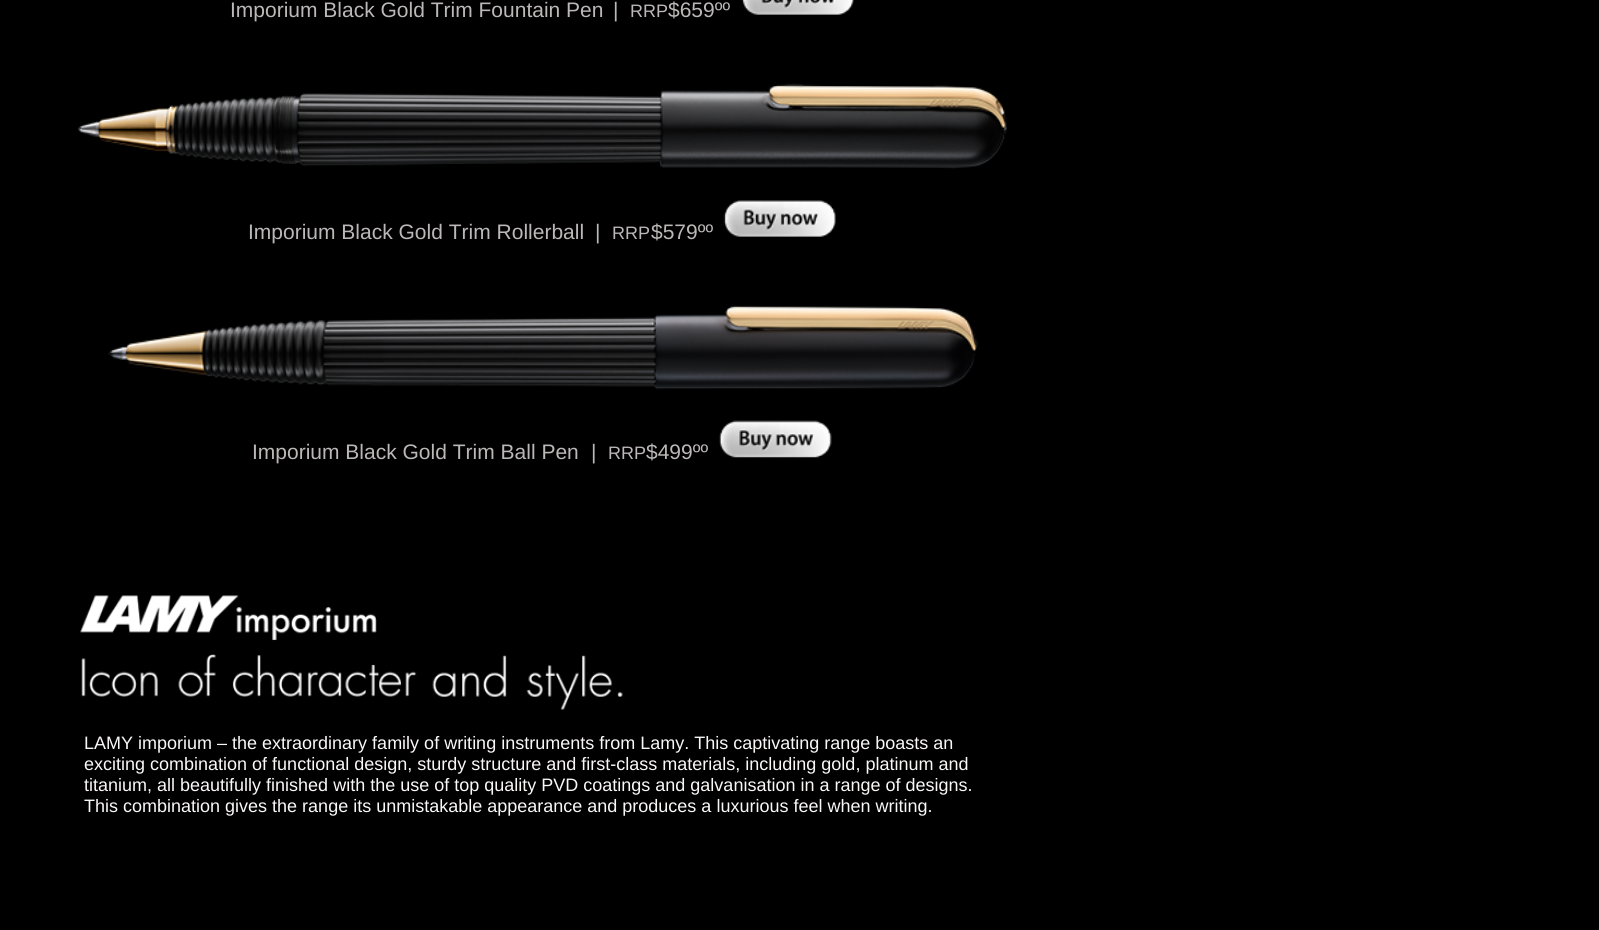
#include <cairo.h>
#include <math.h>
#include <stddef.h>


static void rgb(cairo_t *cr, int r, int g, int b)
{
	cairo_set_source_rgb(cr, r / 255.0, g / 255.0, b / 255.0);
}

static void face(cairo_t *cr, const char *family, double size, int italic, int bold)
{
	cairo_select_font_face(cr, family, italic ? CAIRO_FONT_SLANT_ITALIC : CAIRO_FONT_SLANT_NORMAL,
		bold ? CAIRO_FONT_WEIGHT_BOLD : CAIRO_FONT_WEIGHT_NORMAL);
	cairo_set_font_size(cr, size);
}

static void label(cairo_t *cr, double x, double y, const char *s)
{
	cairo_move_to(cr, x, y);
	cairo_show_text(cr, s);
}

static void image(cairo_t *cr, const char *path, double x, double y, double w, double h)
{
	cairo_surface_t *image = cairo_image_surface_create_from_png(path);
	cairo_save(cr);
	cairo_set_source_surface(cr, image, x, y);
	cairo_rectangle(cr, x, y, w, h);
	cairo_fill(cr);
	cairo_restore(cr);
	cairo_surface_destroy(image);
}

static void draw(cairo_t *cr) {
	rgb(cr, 0, 0, 0);
	cairo_paint(cr);
	face(cr, "Liberation Sans", 21, 0, 0);
	rgb(cr, 188, 184, 184);
	label(cr, 230, 17, "Imporium Black Gold Trim Fountain Pen");
	label(cr, 613, 17, "|");
	face(cr, "Liberation Sans", 18, 0, 0);
	label(cr, 630, 17, "RRP");
	face(cr, "Liberation Sans", 21, 0, 0);
	label(cr, 668, 17, "$659ºº");
	image(cr, "image0.png", 741, 0, 113, 15);
	image(cr, "image1.png", 78, 83, 929, 86);
	label(cr, 248, 239, "Imporium Black Gold Trim Rollerball");
	label(cr, 595, 239, "|");
	face(cr, "Liberation Sans", 18, 0, 0);
	label(cr, 612, 239, "RRP");
	face(cr, "Liberation Sans", 21, 0, 0);
	label(cr, 651, 239, "$579ºº");
	image(cr, "image2.png", 723, 200, 113, 37);
	image(cr, "image3.png", 108, 305, 870, 85);
	label(cr, 252, 459, "Imporium Black Gold Trim Ball Pen");
	label(cr, 591, 459, "|");
	face(cr, "Liberation Sans", 18, 0, 0);
	label(cr, 608, 459, "RRP");
	face(cr, "Liberation Sans", 21, 0, 0);
	label(cr, 646, 459, "$499ºº");
	image(cr, "image4.png", 719, 420, 113, 38);
	image(cr, "image5.png", 80, 595, 543, 115);
	face(cr, "Liberation Sans", 18, 0, 0);
	rgb(cr, 250, 247, 247);
	label(cr, 84, 749, "LAMY imporium – the extraordinary family of writing instruments from Lamy. This captivating range boasts an");
	label(cr, 84, 770, "exciting combination of functional design, sturdy structure and first-class materials, including gold, platinum and");
	label(cr, 84, 791, "titanium, all beautifully finished with the use of top quality PVD coatings and galvanisation in a range of designs.");
	label(cr, 84, 812, "This combination gives the range its unmistakable appearance and produces a luxurious feel when writing.");
}

int main(void) {
	cairo_surface_t *surface = cairo_image_surface_create(CAIRO_FORMAT_RGB24, 1599, 930);
	cairo_t *cr = cairo_create(surface);
	cairo_font_options_t *options = cairo_font_options_create();
	cairo_font_options_set_hint_metrics(options, CAIRO_HINT_METRICS_OFF);
	cairo_font_options_set_hint_style(options, CAIRO_HINT_STYLE_NONE);
	cairo_set_font_options(cr, options);
	cairo_set_miter_limit(cr, 4);
	draw(cr);
	cairo_surface_write_to_png(surface, "render.png");
	cairo_font_options_destroy(options);
	cairo_destroy(cr);
	cairo_surface_destroy(surface);
	return 0;
}
